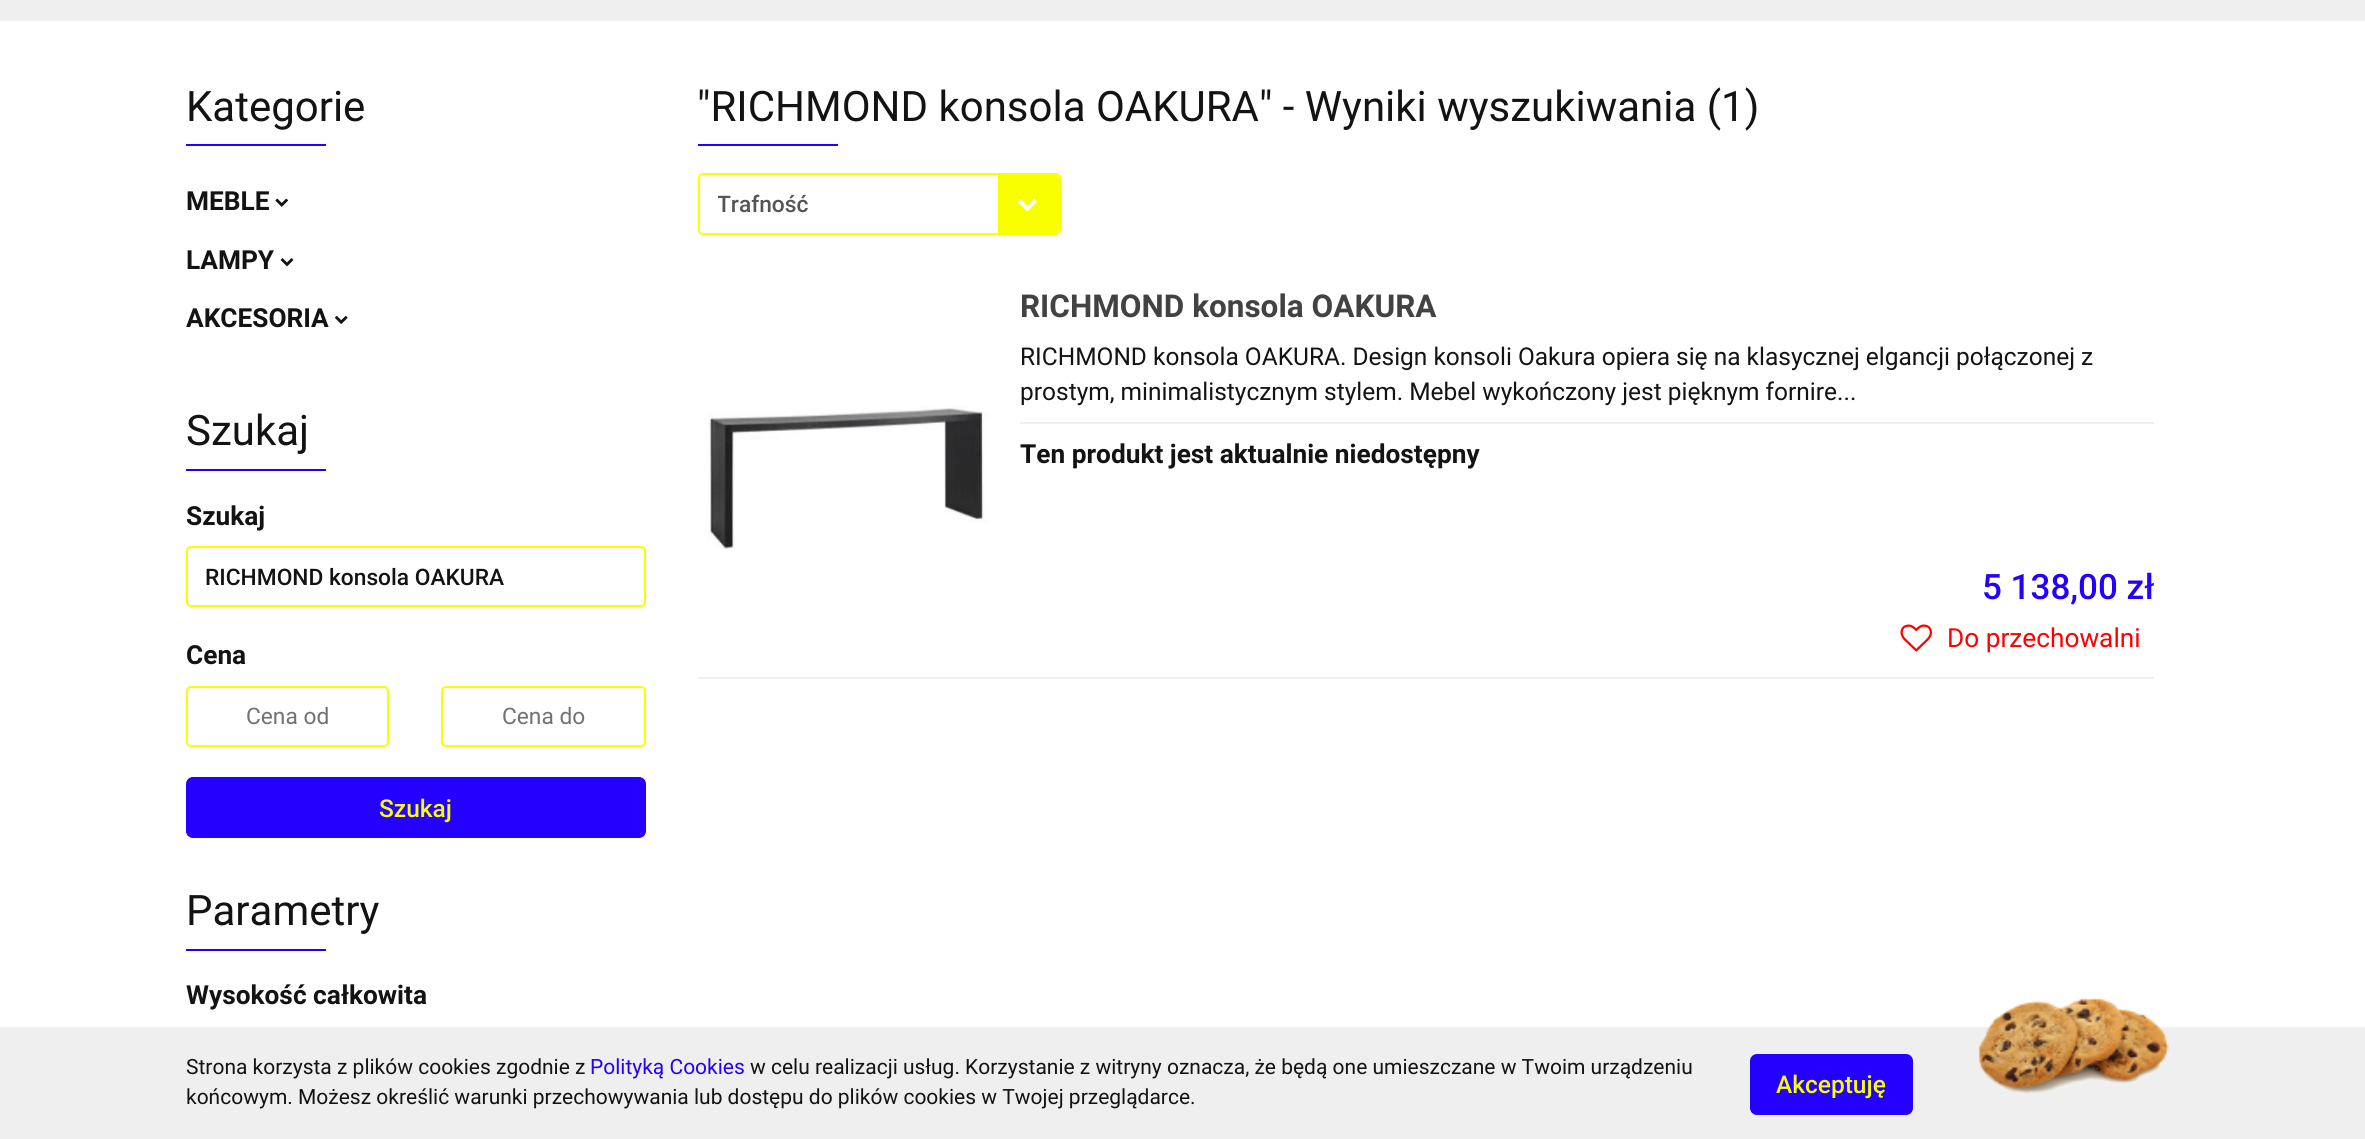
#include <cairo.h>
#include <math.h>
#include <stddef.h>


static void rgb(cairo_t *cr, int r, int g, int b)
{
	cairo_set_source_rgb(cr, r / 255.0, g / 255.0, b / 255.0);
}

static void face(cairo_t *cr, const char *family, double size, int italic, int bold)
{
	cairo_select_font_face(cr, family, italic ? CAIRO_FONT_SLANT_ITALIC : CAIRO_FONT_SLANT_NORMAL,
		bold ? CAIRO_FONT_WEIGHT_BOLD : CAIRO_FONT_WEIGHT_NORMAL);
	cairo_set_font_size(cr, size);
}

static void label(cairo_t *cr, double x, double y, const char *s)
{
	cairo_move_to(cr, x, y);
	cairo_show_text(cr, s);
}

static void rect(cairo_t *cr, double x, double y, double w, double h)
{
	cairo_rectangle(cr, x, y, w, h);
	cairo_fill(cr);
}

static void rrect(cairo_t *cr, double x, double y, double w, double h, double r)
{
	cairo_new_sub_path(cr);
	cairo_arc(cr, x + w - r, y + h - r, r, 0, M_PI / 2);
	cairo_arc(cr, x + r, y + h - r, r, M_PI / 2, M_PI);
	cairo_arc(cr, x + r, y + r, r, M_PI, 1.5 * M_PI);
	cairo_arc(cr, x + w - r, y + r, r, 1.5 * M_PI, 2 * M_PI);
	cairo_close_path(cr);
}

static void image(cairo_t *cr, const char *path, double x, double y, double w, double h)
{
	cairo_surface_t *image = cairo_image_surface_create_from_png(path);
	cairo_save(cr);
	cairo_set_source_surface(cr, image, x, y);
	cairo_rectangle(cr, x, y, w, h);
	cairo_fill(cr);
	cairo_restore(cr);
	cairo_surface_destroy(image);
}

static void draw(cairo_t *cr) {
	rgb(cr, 255, 255, 255);
	cairo_paint(cr);
	rgb(cr, 239, 239, 239);
	rect(cr, 0, 0, 2365, 21);
	face(cr, "Roboto", 42, 0, 0);
	rgb(cr, 19, 19, 19);
	label(cr, 186, 121, "Kategorie");
	rgb(cr, 35, 0, 255);
	rect(cr, 186, 144, 140, 2);
	face(cr, "Roboto", 26.25, 0, 1);
	rgb(cr, 19, 19, 19);
	label(cr, 186, 210, "MEBLE");
	image(cr, "image0.png", 275, 198, 13, 9);
	label(cr, 186, 269, "LAMPY");
	image(cr, "image1.png", 280, 258, 14, 9);
	label(cr, 186, 327, "AKCESORIA");
	image(cr, "image2.png", 335, 316, 13, 8);
	face(cr, "Roboto", 42, 0, 0);
	label(cr, 186, 445, "Szukaj");
	rgb(cr, 35, 0, 255);
	rect(cr, 186, 469, 140, 2);
	face(cr, "Roboto", 26.25, 0, 1);
	rgb(cr, 19, 19, 19);
	label(cr, 186, 525, "Szukaj");
	rrect(cr, 187, 547, 458, 59, 4);
	rgb(cr, 250, 255, 0);
	cairo_stroke(cr);
	face(cr, "Roboto Medium", 22.75, 0, 0);
	rgb(cr, 19, 19, 19);
	label(cr, 205, 585, "RICHMOND konsola OAKURA");
	face(cr, "Roboto", 26.25, 0, 1);
	label(cr, 186, 664, "Cena");
	rrect(cr, 187, 687, 201, 59, 4);
	rgb(cr, 250, 255, 0);
	cairo_stroke(cr);
	face(cr, "Roboto", 22.75, 0, 0);
	rgb(cr, 113, 113, 113);
	label(cr, 246, 724, "Cena od");
	rrect(cr, 442, 687, 203, 59, 4);
	rgb(cr, 250, 255, 0);
	cairo_stroke(cr);
	rgb(cr, 113, 113, 113);
	label(cr, 502, 724, "Cena do");
	rgb(cr, 35, 0, 255);
	rrect(cr, 188.5, 779.5, 455, 56, 4.5);
	cairo_fill_preserve(cr);
	cairo_set_line_width(cr, 5);
	cairo_stroke(cr);
	face(cr, "Roboto Medium", 24.5, 0, 0);
	rgb(cr, 250, 255, 0);
	label(cr, 379, 817, "Szukaj");
	face(cr, "Roboto", 42, 0, 0);
	rgb(cr, 19, 19, 19);
	label(cr, 186, 925, "Parametry");
	rgb(cr, 35, 0, 255);
	rect(cr, 186, 949, 140, 2);
	face(cr, "Roboto", 26.25, 0, 1);
	rgb(cr, 19, 19, 19);
	label(cr, 186, 1004, "Wysokość całkowita");
	face(cr, "Roboto", 42, 0, 0);
	label(cr, 697, 121, "\"RICHMOND konsola OAKURA\" - Wyniki wyszukiwania (1)");
	rgb(cr, 35, 0, 255);
	rect(cr, 698, 144, 140, 2);
	rrect(cr, 699, 174, 361, 60, 4);
	rgb(cr, 250, 255, 0);
	cairo_set_line_width(cr, 2);
	cairo_stroke(cr);
	cairo_save(cr);
	cairo_rectangle(cr, 718, 186, 262, 36);
	cairo_clip(cr);
	face(cr, "Roboto Medium", 22.75, 0, 0);
	rgb(cr, 85, 85, 85);
	label(cr, 717, 212, "Trafność");
	cairo_restore(cr);
	cairo_new_path(cr);
	cairo_move_to(cr, 998, 175);
	cairo_line_to(cr, 1055, 175);
	cairo_curve_to(cr, 1057, 175, 1059, 177, 1059, 179);
	cairo_line_to(cr, 1059, 229);
	cairo_curve_to(cr, 1059, 231, 1057, 233, 1055, 233);
	cairo_line_to(cr, 998, 233);
	cairo_close_path(cr);
	cairo_fill(cr);
	image(cr, "image3.png", 1017, 199, 20, 13);
	image(cr, "image4.png", 707, 407, 281, 142);
	rgb(cr, 239, 239, 239);
	rect(cr, 1020, 422, 1134, 2);
	face(cr, "Roboto", 31.5, 0, 1);
	rgb(cr, 66, 66, 66);
	label(cr, 1020, 317, "RICHMOND konsola OAKURA");
	face(cr, "Roboto", 24.5, 0, 0);
	rgb(cr, 19, 19, 19);
	label(cr, 1020, 365, "RICHMOND konsola OAKURA. Design konsoli Oakura opiera się na klasycznej elgancji połączonej z");
	label(cr, 1020, 400, "prostym, minimalistycznym stylem. Mebel wykończony jest pięknym fornire...");
	face(cr, "Roboto", 26.25, 0, 1);
	label(cr, 1020, 463, "Ten produkt jest aktualnie niedostępny");
	face(cr, "Roboto Medium", 35, 0, 0);
	rgb(cr, 35, 0, 255);
	label(cr, 1982, 599, "5 138,00 zł");
	image(cr, "image5.png", 1900, 624, 32, 28);
	face(cr, "Roboto", 26.25, 0, 0);
	rgb(cr, 255, 0, 0);
	label(cr, 1947, 647, "Do przechowalni");
	rgb(cr, 239, 239, 239);
	rect(cr, 698, 677, 1456, 2);
	rect(cr, 0, 1027, 2365, 112);
	face(cr, "Roboto", 21, 0, 0);
	rgb(cr, 19, 19, 19);
	label(cr, 186, 1074, "Strona korzysta z plików cookies zgodnie z");
	rgb(cr, 35, 0, 255);
	label(cr, 590, 1074, "Polityką Cookies");
	rgb(cr, 19, 19, 19);
	label(cr, 750, 1074, "w celu realizacji usług. Korzystanie z witryny oznacza, że będą one umieszczane w Twoim urządzeniu");
	label(cr, 186, 1104, "końcowym. Możesz określić warunki przechowywania lub dostępu do plików cookies w Twojej przeglądarce.");
	rgb(cr, 35, 0, 255);
	rrect(cr, 1752.5, 1056.5, 158, 56, 4.5);
	cairo_fill_preserve(cr);
	cairo_set_line_width(cr, 5);
	cairo_stroke(cr);
	face(cr, "Roboto Medium", 24.5, 0, 0);
	rgb(cr, 250, 255, 0);
	label(cr, 1776, 1093, "Akceptuję");
	image(cr, "image6.png", 1978, 997, 191, 97);
}

int main(void) {
	cairo_surface_t *surface = cairo_image_surface_create(CAIRO_FORMAT_RGB24, 2365, 1139);
	cairo_t *cr = cairo_create(surface);
	cairo_font_options_t *options = cairo_font_options_create();
	cairo_font_options_set_hint_metrics(options, CAIRO_HINT_METRICS_OFF);
	cairo_font_options_set_hint_style(options, CAIRO_HINT_STYLE_NONE);
	cairo_set_font_options(cr, options);
	cairo_set_miter_limit(cr, 4);
	draw(cr);
	cairo_surface_write_to_png(surface, "render.png");
	cairo_font_options_destroy(options);
	cairo_destroy(cr);
	cairo_surface_destroy(surface);
	return 0;
}
